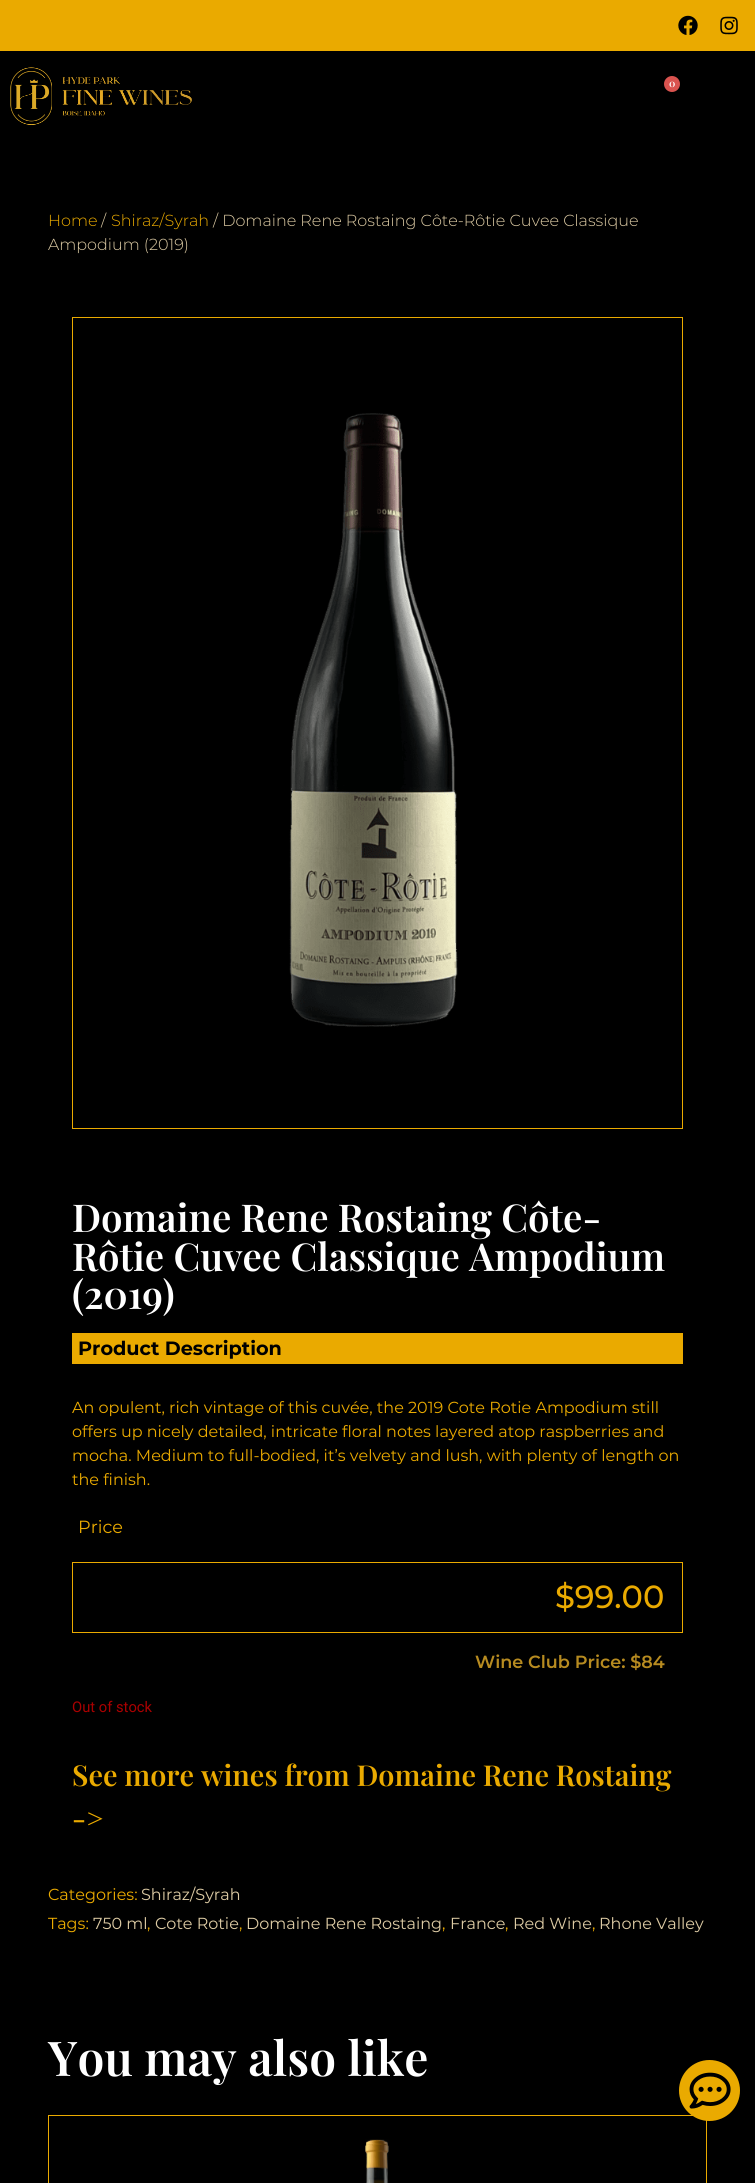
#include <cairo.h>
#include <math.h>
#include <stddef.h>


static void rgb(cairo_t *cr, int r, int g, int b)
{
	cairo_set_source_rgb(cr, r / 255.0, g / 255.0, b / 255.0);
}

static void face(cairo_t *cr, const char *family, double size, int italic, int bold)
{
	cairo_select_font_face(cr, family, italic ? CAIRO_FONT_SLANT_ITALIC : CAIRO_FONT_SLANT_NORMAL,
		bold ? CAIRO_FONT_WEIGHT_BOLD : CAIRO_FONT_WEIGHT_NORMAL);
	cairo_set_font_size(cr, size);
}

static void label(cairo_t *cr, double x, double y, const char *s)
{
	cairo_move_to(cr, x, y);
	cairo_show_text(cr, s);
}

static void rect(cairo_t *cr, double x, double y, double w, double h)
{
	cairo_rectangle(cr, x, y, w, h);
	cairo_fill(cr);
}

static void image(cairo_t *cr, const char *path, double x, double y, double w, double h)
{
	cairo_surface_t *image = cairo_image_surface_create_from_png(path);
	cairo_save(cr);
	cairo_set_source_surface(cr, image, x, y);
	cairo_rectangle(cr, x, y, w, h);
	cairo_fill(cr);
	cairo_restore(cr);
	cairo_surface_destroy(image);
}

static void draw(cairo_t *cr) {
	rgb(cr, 234, 170, 0);
	cairo_paint(cr);
	image(cr, "image0.png", 678, 15, 20, 20);
	image(cr, "image1.png", 720, 16, 18, 19);
	rgb(cr, 0, 0, 0);
	rect(cr, 0, 51, 755, 2132);
	image(cr, "image2.png", 10, 67, 182, 58);
	rgb(cr, 217, 83, 79);
	cairo_arc(cr, 672, 84, 8, 0, 2 * M_PI);
	cairo_fill(cr);
	face(cr, "Playfair Display SemiBold", 10, 0, 0);
	rgb(cr, 255, 255, 255);
	label(cr, 669, 87, "0");
	face(cr, "Montserrat Light", 16, 0, 0);
	rgb(cr, 234, 170, 0);
	label(cr, 48, 226, "Home");
	rgb(cr, 221, 203, 164);
	label(cr, 101, 226, "/");
	rgb(cr, 234, 170, 0);
	label(cr, 111, 226, "Shiraz/Syrah");
	rgb(cr, 221, 203, 164);
	label(cr, 213, 226, "/ Domaine Rene Rostaing Côte-Rôtie Cuvee Classique");
	label(cr, 48, 250, "Ampodium (2019)");
	cairo_rectangle(cr, 72.5, 317.5, 610, 811);
	rgb(cr, 234, 170, 0);
	cairo_set_line_width(cr, 1);
	cairo_stroke(cr);
	image(cr, "image3.png", 289, 413, 169, 614);
	face(cr, "Playfair Display SemiBold", 38.4, 0, 0);
	rgb(cr, 255, 255, 255);
	label(cr, 72, 1232, "Domaine Rene Rostaing Côte-");
	label(cr, 72, 1271, "Rôtie Cuvee Classique Ampodium");
	label(cr, 72, 1309, "(2019)");
	rgb(cr, 234, 170, 0);
	rect(cr, 72, 1333, 611, 31);
	face(cr, "Montserrat", 19.25, 0, 1);
	rgb(cr, 0, 0, 0);
	label(cr, 78, 1355, "Product Description");
	face(cr, "Montserrat", 16, 0, 0);
	rgb(cr, 234, 170, 0);
	label(cr, 72, 1413, "An opulent, rich vintage of this cuvée, the 2019 Cote Rotie Ampodium still");
	label(cr, 72, 1437, "offers up nicely detailed, intricate floral notes layered atop raspberries and");
	label(cr, 72, 1461, "mocha. Medium to full-bodied, it’s velvety and lush, with plenty of length on");
	label(cr, 72, 1485, "the finish.");
	face(cr, "Montserrat", 17.6, 0, 0);
	label(cr, 78, 1533, "Price");
	cairo_rectangle(cr, 72.5, 1562.5, 610, 70);
	cairo_stroke(cr);
	face(cr, "Montserrat Medium", 32, 0, 0);
	label(cr, 555, 1608, "$99.00");
	face(cr, "Montserrat SemiBold", 17.6, 0, 0);
	rgb(cr, 183, 139, 32);
	label(cr, 475, 1668, "Wine Club Price: $84");
	face(cr, "Roboto", 14.75, 0, 0);
	rgb(cr, 170, 0, 0);
	label(cr, 72, 1712, "Out of stock");
	face(cr, "Playfair Display SemiBold", 28.8, 0, 0);
	rgb(cr, 234, 170, 0);
	label(cr, 72, 1786, "See more wines from Domaine Rene Rostaing");
	label(cr, 72, 1829, "->");
	face(cr, "Montserrat", 16, 0, 0);
	label(cr, 48, 1900, "Categories:");
	rgb(cr, 221, 203, 164);
	label(cr, 141, 1900, "Shiraz/Syrah");
	rgb(cr, 234, 170, 0);
	label(cr, 48, 1929, "Tags:");
	rgb(cr, 221, 203, 164);
	label(cr, 93, 1929, "750 ml");
	rgb(cr, 234, 170, 0);
	label(cr, 147, 1929, ",");
	rgb(cr, 221, 203, 164);
	label(cr, 155, 1929, "Cote Rotie");
	rgb(cr, 234, 170, 0);
	label(cr, 239, 1929, ",");
	rgb(cr, 221, 203, 164);
	label(cr, 246, 1929, "Domaine Rene Rostaing");
	rgb(cr, 234, 170, 0);
	label(cr, 442, 1929, ",");
	rgb(cr, 221, 203, 164);
	label(cr, 450, 1929, "France");
	rgb(cr, 234, 170, 0);
	label(cr, 505, 1929, ",");
	rgb(cr, 221, 203, 164);
	label(cr, 513, 1929, "Red Wine");
	rgb(cr, 234, 170, 0);
	label(cr, 592, 1929, ",");
	rgb(cr, 221, 203, 164);
	label(cr, 599, 1929, "Rhone Valley");
	face(cr, "Playfair Display SemiBold", 48, 0, 0);
	rgb(cr, 255, 255, 255);
	label(cr, 48, 2076, "You may also like");
	rgb(cr, 234, 170, 0);
	rect(cr, 48, 2115, 645, 1);
	rect(cr, 706, 2115, 1, 68);
	rect(cr, 48, 2115, 1, 68);
	image(cr, "image4.png", 365, 2139, 24, 44);
	cairo_arc(cr, 709.5, 2090.5, 30.5, 0, 2 * M_PI);
	cairo_fill(cr);
	image(cr, "image5.png", 689, 2072, 42, 37);
}

int main(void) {
	cairo_surface_t *surface = cairo_image_surface_create(CAIRO_FORMAT_RGB24, 755, 2183);
	cairo_t *cr = cairo_create(surface);
	cairo_font_options_t *options = cairo_font_options_create();
	cairo_font_options_set_hint_metrics(options, CAIRO_HINT_METRICS_OFF);
	cairo_font_options_set_hint_style(options, CAIRO_HINT_STYLE_NONE);
	cairo_set_font_options(cr, options);
	cairo_set_miter_limit(cr, 4);
	draw(cr);
	cairo_surface_write_to_png(surface, "render.png");
	cairo_font_options_destroy(options);
	cairo_destroy(cr);
	cairo_surface_destroy(surface);
	return 0;
}
